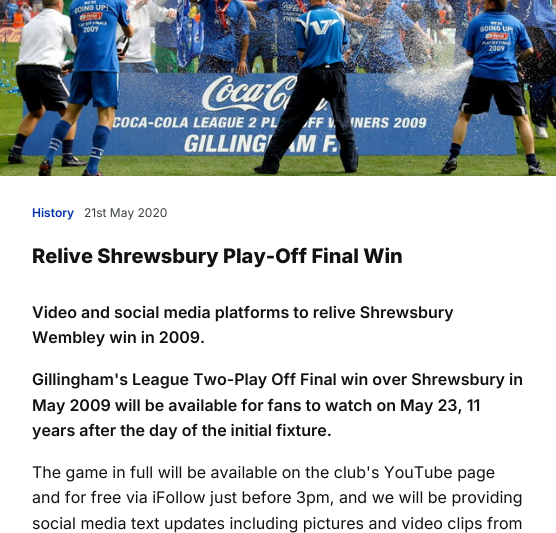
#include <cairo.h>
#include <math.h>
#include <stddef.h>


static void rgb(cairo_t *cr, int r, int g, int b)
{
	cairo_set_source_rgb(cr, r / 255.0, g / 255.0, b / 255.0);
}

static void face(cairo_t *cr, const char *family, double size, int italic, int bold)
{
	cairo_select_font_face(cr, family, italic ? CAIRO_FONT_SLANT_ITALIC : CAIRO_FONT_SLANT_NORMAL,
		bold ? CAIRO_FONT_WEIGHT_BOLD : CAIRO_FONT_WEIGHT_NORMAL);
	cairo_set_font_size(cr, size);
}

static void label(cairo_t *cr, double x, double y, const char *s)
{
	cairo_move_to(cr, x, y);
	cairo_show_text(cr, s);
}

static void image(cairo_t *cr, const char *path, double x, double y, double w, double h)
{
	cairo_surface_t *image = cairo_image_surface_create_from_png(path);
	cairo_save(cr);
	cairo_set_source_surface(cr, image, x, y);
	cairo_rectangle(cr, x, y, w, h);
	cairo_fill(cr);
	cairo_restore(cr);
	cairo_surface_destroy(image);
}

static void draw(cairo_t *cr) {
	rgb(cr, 255, 255, 255);
	cairo_paint(cr);
	image(cr, "image0.png", 0, 0, 556, 176);
	face(cr, "Inter SemiBold", 12, 0, 0);
	rgb(cr, 0, 51, 171);
	label(cr, 32, 217, "History");
	face(cr, "Inter", 12, 0, 0);
	rgb(cr, 56, 62, 66);
	label(cr, 84, 217, "21st May 2020");
	face(cr, "Inter ExtraBold", 20, 0, 0);
	rgb(cr, 17, 17, 17);
	label(cr, 32, 263, "Relive Shrewsbury Play-Off Final Win");
	face(cr, "Inter SemiBold", 16, 0, 0);
	label(cr, 32, 318, "Video and social media platforms to relive Shrewsbury");
	label(cr, 32, 343, "Wembley win in 2009.");
	label(cr, 32, 385, "Gillingham's League Two-Play Off Final win over Shrewsbury in");
	label(cr, 32, 411, "May 2009 will be available for fans to watch on May 23, 11");
	label(cr, 32, 436, "years after the day of the initial fixture.");
	face(cr, "Inter", 16, 0, 0);
	label(cr, 32, 478, "The game in full will be available on the club's YouTube page");
	label(cr, 32, 503, "and for free via iFollow just before 3pm, and we will be providing");
	label(cr, 32, 529, "social media text updates including pictures and video clips from");
}

int main(void) {
	cairo_surface_t *surface = cairo_image_surface_create(CAIRO_FORMAT_RGB24, 556, 533);
	cairo_t *cr = cairo_create(surface);
	cairo_font_options_t *options = cairo_font_options_create();
	cairo_font_options_set_hint_metrics(options, CAIRO_HINT_METRICS_OFF);
	cairo_font_options_set_hint_style(options, CAIRO_HINT_STYLE_NONE);
	cairo_set_font_options(cr, options);
	cairo_set_miter_limit(cr, 4);
	draw(cr);
	cairo_surface_write_to_png(surface, "render.png");
	cairo_font_options_destroy(options);
	cairo_destroy(cr);
	cairo_surface_destroy(surface);
	return 0;
}
